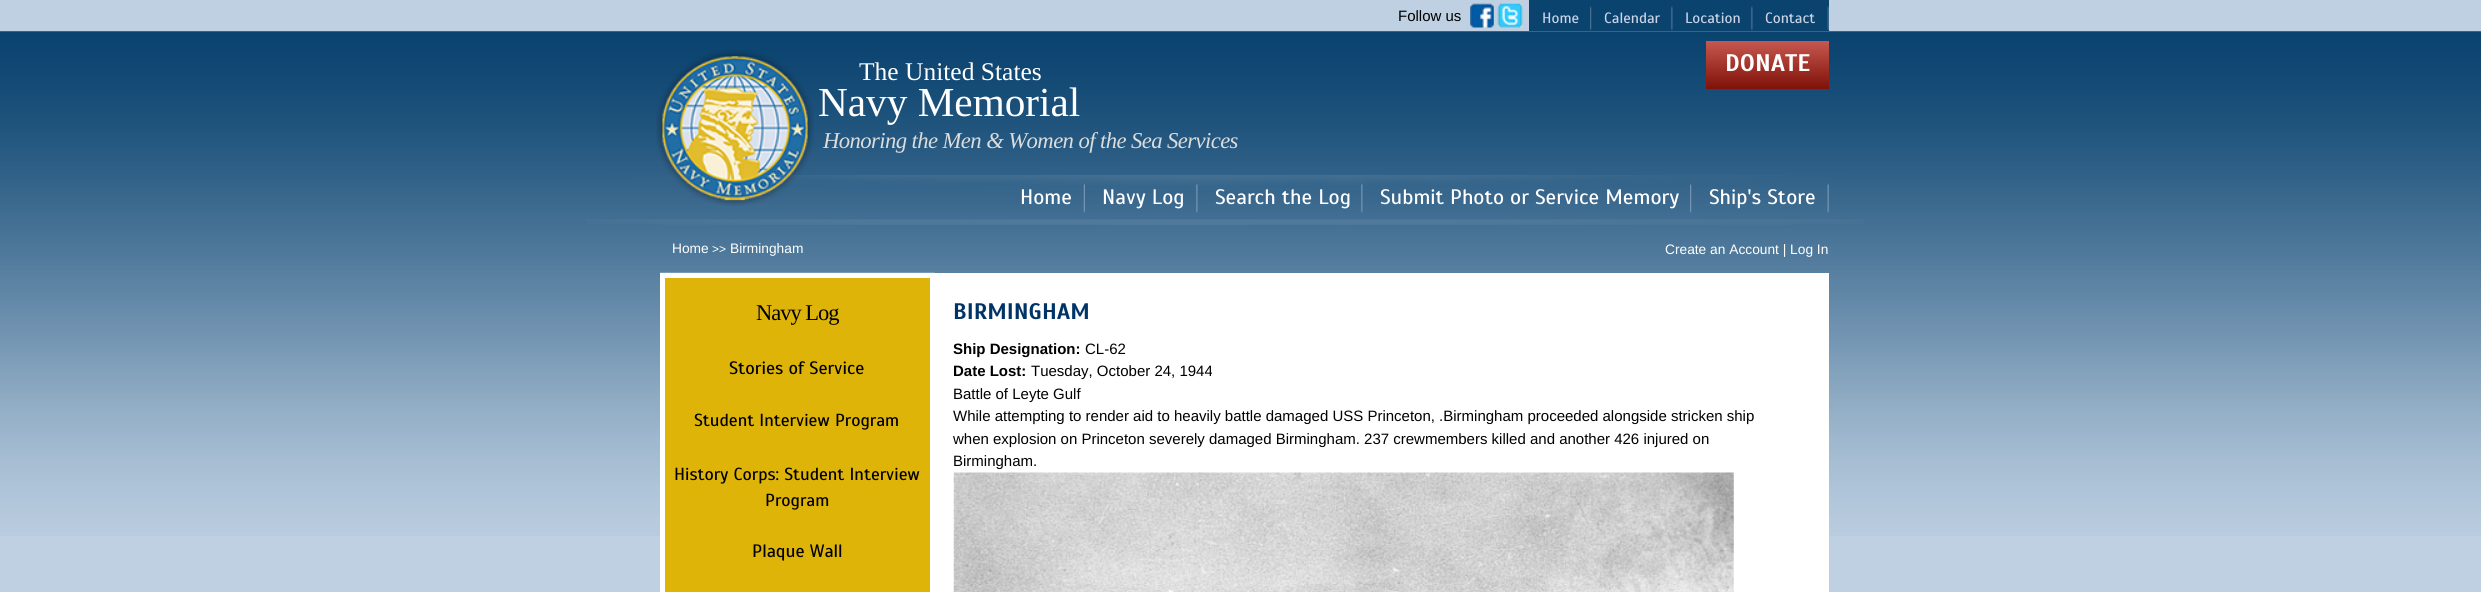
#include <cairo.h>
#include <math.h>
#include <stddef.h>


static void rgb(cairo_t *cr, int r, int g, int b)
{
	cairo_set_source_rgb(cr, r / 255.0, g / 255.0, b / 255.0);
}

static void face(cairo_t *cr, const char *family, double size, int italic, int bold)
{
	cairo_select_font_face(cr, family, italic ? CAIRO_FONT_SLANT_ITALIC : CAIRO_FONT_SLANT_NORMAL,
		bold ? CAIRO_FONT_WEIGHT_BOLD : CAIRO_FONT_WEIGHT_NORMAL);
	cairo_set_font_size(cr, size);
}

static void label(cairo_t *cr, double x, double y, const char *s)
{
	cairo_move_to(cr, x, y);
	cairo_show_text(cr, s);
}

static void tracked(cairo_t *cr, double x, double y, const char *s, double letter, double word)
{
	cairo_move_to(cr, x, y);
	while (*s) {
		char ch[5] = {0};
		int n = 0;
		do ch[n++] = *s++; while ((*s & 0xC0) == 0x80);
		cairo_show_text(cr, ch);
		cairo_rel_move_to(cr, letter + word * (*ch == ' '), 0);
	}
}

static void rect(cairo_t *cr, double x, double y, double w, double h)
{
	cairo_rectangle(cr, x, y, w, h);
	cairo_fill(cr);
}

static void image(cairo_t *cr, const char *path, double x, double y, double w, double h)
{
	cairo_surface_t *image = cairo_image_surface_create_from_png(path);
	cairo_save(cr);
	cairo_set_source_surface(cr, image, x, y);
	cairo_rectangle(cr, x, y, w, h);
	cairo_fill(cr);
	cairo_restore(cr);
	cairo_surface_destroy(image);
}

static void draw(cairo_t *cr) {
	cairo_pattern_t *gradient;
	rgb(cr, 190, 208, 226);
	cairo_paint(cr);
	image(cr, "image0.png", 0, 31, 2481, 505);
	face(cr, "Liberation Sans", 15, 0, 0);
	rgb(cr, 0, 0, 0);
	label(cr, 1398, 21, "Follow us");
	image(cr, "image1.png", 1470, 3, 24, 25);
	image(cr, "image2.png", 1497, 3, 26, 25);
	rgb(cr, 11, 67, 111);
	rect(cr, 1529, 0, 300, 31);
	image(cr, "image3.png", 1590, 6, 2, 24);
	face(cr, "Scada", 15, 0, 0);
	rgb(cr, 204, 213, 232);
	label(cr, 1542, 23, "Home");
	image(cr, "image4.png", 1671, 6, 2, 24);
	label(cr, 1604, 23, "Calendar");
	image(cr, "image4.png", 1751, 6, 2, 24);
	label(cr, 1685, 23, "Location");
	image(cr, "image5.png", 1827, 6, 2, 24);
	label(cr, 1765, 23, "Contact");
	image(cr, "image6.png", 656, 50, 158, 156);
	face(cr, "Liberation Serif", 25.5, 0, 0);
	rgb(cr, 255, 255, 255);
	label(cr, 859, 80, "The United States");
	face(cr, "Liberation Serif", 41.25, 0, 0);
	label(cr, 818, 116, "Navy Memorial");
	face(cr, "Liberation Serif", 22.7, 1, 0);
	rgb(cr, 220, 220, 220);
	tracked(cr, 823, 148, "Honoring the Men & Women of the Sea Services", -0.6, 0);
	gradient = cairo_pattern_create_linear(1768, 41, 1768, 89);
	cairo_pattern_add_color_stop_rgba(gradient, 0, 0.78, 0.345, 0.314, 1);
	cairo_pattern_add_color_stop_rgba(gradient, 1, 0.502, 0.067, 0.035, 1);
	cairo_set_source(cr, gradient);
	cairo_pattern_destroy(gradient);
	rect(cr, 1706, 41, 123, 48);
	face(cr, "Scada", 24, 0, 1);
	rgb(cr, 255, 255, 255);
	label(cr, 1725, 71, "DONATE");
	image(cr, "image7.png", 586, 175, 1278, 50);
	image(cr, "image8.png", 1083, 183, 2, 30);
	face(cr, "Scada", 21, 0, 0);
	label(cr, 1020, 204, "Home");
	image(cr, "image9.png", 1196, 183, 2, 30);
	label(cr, 1102, 204, "Navy Log");
	image(cr, "image10.png", 1361, 183, 2, 30);
	label(cr, 1215, 204, "Search the Log");
	image(cr, "image11.png", 1690, 183, 2, 30);
	label(cr, 1380, 204, "Submit Photo or Service Memory");
	image(cr, "image12.png", 1827, 183, 2, 30);
	label(cr, 1709, 204, "Ship's Store");
	face(cr, "Liberation Sans", 13.75, 0, 0);
	label(cr, 672, 253, "Home");
	face(cr, "Liberation Sans", 12, 0, 0);
	label(cr, 712, 253, ">>");
	face(cr, "Liberation Sans", 13.75, 0, 0);
	label(cr, 730, 253, "Birmingham");
	label(cr, 1665, 254, "Create an Account | Log In");
	cairo_set_source_rgba(cr, 1, 1, 1, 0.2);
	rect(cr, 660, 272, 275, 1);
	rgb(cr, 222, 180, 8);
	cairo_rectangle(cr, 662.5, 275.5, 270, 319);
	cairo_fill_preserve(cr);
	rgb(cr, 255, 255, 255);
	cairo_set_line_width(cr, 5);
	cairo_stroke(cr);
	face(cr, "Liberation Serif", 22.5, 0, 0);
	rgb(cr, 0, 0, 0);
	tracked(cr, 756, 320, "Navy Log", -1, 0);
	face(cr, "Scada", 18, 0, 0);
	label(cr, 729, 374, "Stories of Service");
	face(cr, "Scada", 17.5, 0, 0);
	label(cr, 694, 426, "Student Interview Program");
	label(cr, 674, 480, "History Corps: Student Interview");
	label(cr, 765, 506, "Program");
	face(cr, "Scada", 18, 0, 0);
	label(cr, 752, 557, "Plaque Wall");
	rgb(cr, 255, 255, 255);
	rect(cr, 935, 273, 894, 319);
	face(cr, "Scada", 22.5, 0, 1);
	rgb(cr, 0, 51, 102);
	label(cr, 953, 319, "BIRMINGHAM");
	face(cr, "Liberation Sans", 15, 0, 1);
	rgb(cr, 0, 0, 0);
	label(cr, 953, 354, "Ship Designation:");
	face(cr, "Liberation Sans", 15, 0, 0);
	label(cr, 1085, 354, "CL-62");
	face(cr, "Liberation Sans", 15, 0, 1);
	label(cr, 953, 376, "Date Lost:");
	face(cr, "Liberation Sans", 15, 0, 0);
	label(cr, 1031, 376, "Tuesday, October 24, 1944");
	label(cr, 953, 399, "Battle of Leyte Gulf");
	label(cr, 953, 421, "While attempting to render aid to heavily battle damaged USS Princeton, .Birmingham proceeded alongside stricken ship");
	label(cr, 953, 444, "when explosion on Princeton severely damaged Birmingham. 237 crewmembers killed and another 426 injured on");
	label(cr, 953, 466, "Birmingham.");
	image(cr, "image13.png", 953, 472, 781, 120);
}

int main(void) {
	cairo_surface_t *surface = cairo_image_surface_create(CAIRO_FORMAT_RGB24, 2481, 592);
	cairo_t *cr = cairo_create(surface);
	cairo_font_options_t *options = cairo_font_options_create();
	cairo_font_options_set_hint_metrics(options, CAIRO_HINT_METRICS_OFF);
	cairo_font_options_set_hint_style(options, CAIRO_HINT_STYLE_NONE);
	cairo_set_font_options(cr, options);
	cairo_set_miter_limit(cr, 4);
	draw(cr);
	cairo_surface_write_to_png(surface, "render.png");
	cairo_font_options_destroy(options);
	cairo_destroy(cr);
	cairo_surface_destroy(surface);
	return 0;
}
